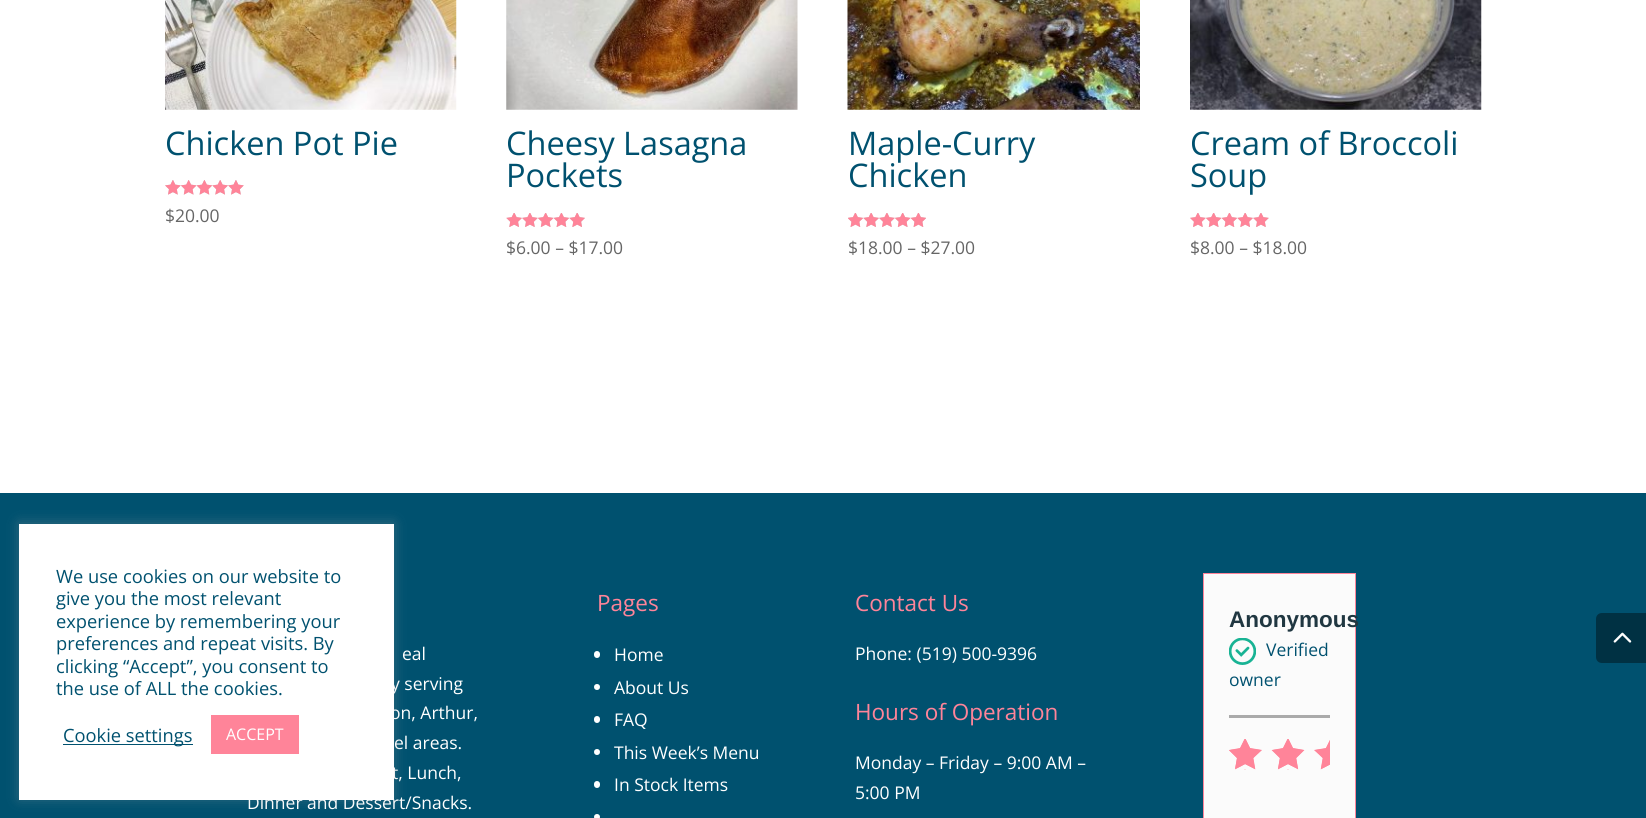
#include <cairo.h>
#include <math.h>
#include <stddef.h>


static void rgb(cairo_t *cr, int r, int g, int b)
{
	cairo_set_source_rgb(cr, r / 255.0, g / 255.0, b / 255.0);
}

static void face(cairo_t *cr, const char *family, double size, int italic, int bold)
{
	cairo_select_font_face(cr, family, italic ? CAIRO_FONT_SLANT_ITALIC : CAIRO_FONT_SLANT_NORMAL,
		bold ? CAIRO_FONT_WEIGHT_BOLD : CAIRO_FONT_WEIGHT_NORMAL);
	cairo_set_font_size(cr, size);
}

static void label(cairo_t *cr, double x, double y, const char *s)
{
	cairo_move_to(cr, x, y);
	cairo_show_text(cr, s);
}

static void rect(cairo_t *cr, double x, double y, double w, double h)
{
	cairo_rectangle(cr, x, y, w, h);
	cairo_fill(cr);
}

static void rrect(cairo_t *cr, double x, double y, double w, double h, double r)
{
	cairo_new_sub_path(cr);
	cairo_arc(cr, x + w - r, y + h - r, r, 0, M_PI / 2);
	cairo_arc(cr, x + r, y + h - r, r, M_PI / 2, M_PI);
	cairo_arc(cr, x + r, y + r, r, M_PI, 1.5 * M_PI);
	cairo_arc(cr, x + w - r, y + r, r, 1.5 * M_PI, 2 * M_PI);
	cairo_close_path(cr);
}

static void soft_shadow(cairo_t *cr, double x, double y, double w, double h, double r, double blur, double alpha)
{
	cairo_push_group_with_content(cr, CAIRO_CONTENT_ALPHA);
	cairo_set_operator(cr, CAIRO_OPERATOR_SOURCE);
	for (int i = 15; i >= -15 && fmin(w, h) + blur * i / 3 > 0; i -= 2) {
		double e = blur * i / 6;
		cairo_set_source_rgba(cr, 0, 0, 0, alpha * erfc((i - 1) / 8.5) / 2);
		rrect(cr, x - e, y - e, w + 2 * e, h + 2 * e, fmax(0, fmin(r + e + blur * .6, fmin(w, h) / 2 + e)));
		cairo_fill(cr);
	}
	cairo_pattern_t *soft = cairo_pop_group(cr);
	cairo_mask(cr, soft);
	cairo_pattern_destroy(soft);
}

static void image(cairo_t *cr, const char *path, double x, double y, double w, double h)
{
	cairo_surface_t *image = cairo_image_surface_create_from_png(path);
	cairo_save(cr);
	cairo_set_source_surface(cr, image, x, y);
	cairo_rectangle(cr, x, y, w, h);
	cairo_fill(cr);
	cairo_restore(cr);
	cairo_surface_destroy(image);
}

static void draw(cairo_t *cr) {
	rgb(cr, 255, 255, 255);
	cairo_paint(cr);
	image(cr, "image0.png", 165, 0, 292, 110);
	face(cr, "Open Sans", 32.5, 0, 0);
	rgb(cr, 0, 81, 111);
	label(cr, 165, 155, "Chicken Pot Pie");
	image(cr, "image1.png", 165, 180, 79, 15);
	image(cr, "image2.png", 165, 180, 79, 15);
	face(cr, "Open Sans", 17.5, 0, 0);
	rgb(cr, 102, 102, 102);
	label(cr, 165, 222, "$20.00");
	image(cr, "image3.png", 506, 0, 292, 110);
	face(cr, "Open Sans", 32.5, 0, 0);
	rgb(cr, 0, 81, 111);
	label(cr, 506, 155, "Cheesy Lasagna");
	label(cr, 506, 187, "Pockets");
	image(cr, "image4.png", 506, 213, 79, 14);
	image(cr, "image5.png", 506, 213, 79, 14);
	face(cr, "Open Sans", 17.5, 0, 0);
	rgb(cr, 102, 102, 102);
	label(cr, 506, 254, "$6.00 – $17.00");
	image(cr, "image6.png", 847, 0, 293, 110);
	face(cr, "Open Sans", 32.5, 0, 0);
	rgb(cr, 0, 81, 111);
	label(cr, 848, 155, "Maple-Curry");
	label(cr, 848, 187, "Chicken");
	image(cr, "image7.png", 848, 213, 78, 14);
	image(cr, "image8.png", 848, 213, 78, 14);
	face(cr, "Open Sans", 17.5, 0, 0);
	rgb(cr, 102, 102, 102);
	label(cr, 848, 254, "$18.00 – $27.00");
	image(cr, "image9.png", 1190, 0, 292, 110);
	face(cr, "Open Sans", 32.5, 0, 0);
	rgb(cr, 0, 81, 111);
	label(cr, 1190, 155, "Cream of Broccoli");
	label(cr, 1190, 187, "Soup");
	image(cr, "image10.png", 1190, 213, 79, 14);
	image(cr, "image11.png", 1190, 213, 79, 14);
	face(cr, "Open Sans", 17.5, 0, 0);
	rgb(cr, 102, 102, 102);
	label(cr, 1190, 254, "$8.00 – $18.00");
	rgb(cr, 0, 81, 111);
	rect(cr, 0, 493, 1646, 325);
	rgb(cr, 255, 255, 255);
	label(cr, 402, 660, "eal");
	label(cr, 391, 690, "y serving");
	label(cr, 390, 719, "on, Arthur,");
	label(cr, 394, 749, "el areas.");
	label(cr, 392, 779, "t, Lunch,");
	label(cr, 247, 809, "Dinner and Dessert/Snacks.");
	face(cr, "Open Sans", 22.5, 0, 0);
	rgb(cr, 255, 132, 153);
	label(cr, 597, 611, "Pages");
	rgb(cr, 255, 255, 255);
	rrect(cr, 594, 651, 6, 7, 3);
	cairo_fill(cr);
	face(cr, "Open Sans", 17.5, 0, 0);
	label(cr, 614, 661, "Home");
	cairo_new_path(cr);
	cairo_arc(cr, 597, 687, 3, 0, 2 * M_PI);
	cairo_fill(cr);
	label(cr, 614, 694, "About Us");
	rrect(cr, 594, 716, 6, 7, 3);
	cairo_fill(cr);
	label(cr, 614, 726, "FAQ");
	cairo_new_path(cr);
	cairo_arc(cr, 597, 752, 3, 0, 2 * M_PI);
	cairo_fill(cr);
	label(cr, 614, 759, "This Week’s Menu");
	rrect(cr, 594, 781, 6, 7, 3);
	cairo_fill(cr);
	label(cr, 614, 791, "In Stock Items");
	cairo_new_path(cr);
	cairo_arc(cr, 597, 817, 3, 0, 2 * M_PI);
	cairo_fill(cr);
	face(cr, "Open Sans", 22.5, 0, 0);
	rgb(cr, 255, 132, 153);
	label(cr, 855, 611, "Contact Us");
	face(cr, "Open Sans", 17.5, 0, 0);
	rgb(cr, 255, 255, 255);
	label(cr, 855, 660, "Phone: (519) 500-9396");
	face(cr, "Open Sans", 22.5, 0, 0);
	rgb(cr, 255, 132, 153);
	label(cr, 855, 720, "Hours of Operation");
	face(cr, "Open Sans", 17.5, 0, 0);
	rgb(cr, 255, 255, 255);
	label(cr, 855, 769, "Monday – Friday – 9:00 AM –");
	label(cr, 855, 799, "5:00 PM");
	rgb(cr, 251, 251, 251);
	cairo_rectangle(cr, 1203.5, 573.5, 152, 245);
	cairo_fill_preserve(cr);
	rgb(cr, 255, 132, 153);
	cairo_set_line_width(cr, 1);
	cairo_stroke(cr);
	rgb(cr, 170, 170, 170);
	rect(cr, 1229, 715, 101, 3);
	face(cr, "Liberation Sans", 22.5, 0, 1);
	rgb(cr, 32, 55, 65);
	label(cr, 1229, 627, "Anonymous");
	image(cr, "image12.png", 1229, 638, 27, 27);
	face(cr, "Open Sans", 17.5, 0, 0);
	rgb(cr, 0, 81, 111);
	label(cr, 1266, 656, "Verified");
	label(cr, 1229, 686, "owner");
	image(cr, "image13.png", 1229, 739, 101, 31);
	cairo_save(cr);
	cairo_rectangle(cr, 1229, 739, 101, 31);
	cairo_clip(cr);
	rgb(cr, 255, 132, 153);
	cairo_new_path(cr);
	cairo_move_to(cr, 1245, 738);
	cairo_line_to(cr, 1240, 748);
	cairo_line_to(cr, 1229, 750);
	cairo_line_to(cr, 1237, 758);
	cairo_line_to(cr, 1235, 769);
	cairo_line_to(cr, 1245, 764);
	cairo_line_to(cr, 1255, 769);
	cairo_line_to(cr, 1253, 758);
	cairo_line_to(cr, 1262, 750);
	cairo_line_to(cr, 1250, 748);
	cairo_close_path(cr);
	cairo_move_to(cr, 1288, 738);
	cairo_line_to(cr, 1283, 748);
	cairo_line_to(cr, 1272, 750);
	cairo_line_to(cr, 1280, 758);
	cairo_line_to(cr, 1278, 769);
	cairo_line_to(cr, 1288, 764);
	cairo_line_to(cr, 1298, 769);
	cairo_line_to(cr, 1296, 758);
	cairo_line_to(cr, 1304, 750);
	cairo_line_to(cr, 1293, 748);
	cairo_close_path(cr);
	cairo_move_to(cr, 1331, 738);
	cairo_line_to(cr, 1326, 748);
	cairo_line_to(cr, 1314, 750);
	cairo_line_to(cr, 1323, 758);
	cairo_line_to(cr, 1321, 769);
	cairo_line_to(cr, 1331, 764);
	cairo_line_to(cr, 1341, 769);
	cairo_line_to(cr, 1339, 758);
	cairo_line_to(cr, 1347, 750);
	cairo_line_to(cr, 1336, 748);
	cairo_close_path(cr);
	cairo_fill(cr);
	cairo_new_path(cr);
	cairo_move_to(cr, 1245, 769);
	cairo_line_to(cr, 1240, 780);
	cairo_line_to(cr, 1229, 781);
	cairo_line_to(cr, 1237, 789);
	cairo_line_to(cr, 1235, 801);
	cairo_line_to(cr, 1245, 795);
	cairo_line_to(cr, 1255, 801);
	cairo_line_to(cr, 1253, 789);
	cairo_line_to(cr, 1262, 781);
	cairo_line_to(cr, 1250, 780);
	cairo_close_path(cr);
	cairo_move_to(cr, 1288, 769);
	cairo_line_to(cr, 1283, 780);
	cairo_line_to(cr, 1272, 781);
	cairo_line_to(cr, 1280, 789);
	cairo_line_to(cr, 1278, 801);
	cairo_line_to(cr, 1288, 795);
	cairo_line_to(cr, 1298, 801);
	cairo_line_to(cr, 1296, 789);
	cairo_line_to(cr, 1304, 781);
	cairo_line_to(cr, 1293, 780);
	cairo_close_path(cr);
	cairo_fill(cr);
	cairo_restore(cr);
	rgb(cr, 172, 171, 171);
	soft_shadow(cr, 19, 523, 375, 276, 0, 6, 0.3);
	rgb(cr, 255, 255, 255);
	rect(cr, 19, 524, 375, 276);
	face(cr, "Open Sans", 18.3, 0, 0);
	rgb(cr, 0, 81, 111);
	label(cr, 56, 583, "We use cookies on our website to");
	label(cr, 56, 605, "give you the most relevant");
	label(cr, 56, 628, "experience by remembering your");
	label(cr, 56, 650, "preferences and repeat visits. By");
	label(cr, 56, 673, "clicking “Accept”, you consent to");
	label(cr, 56, 695, "the use of ALL the cookies.");
	rect(cr, 63, 744, 130, 1);
	label(cr, 63, 742, "Cookie settings");
	rgb(cr, 255, 132, 153);
	rect(cr, 211, 715, 88, 39);
	face(cr, "Open Sans", 16, 0, 0);
	rgb(cr, 255, 255, 255);
	label(cr, 226, 740, "ACCEPT");
	rgb(cr, 0, 49, 67);
	cairo_new_path(cr);
	cairo_move_to(cr, 1602, 613);
	cairo_line_to(cr, 1646, 613);
	cairo_line_to(cr, 1646, 663);
	cairo_line_to(cr, 1602, 663);
	cairo_curve_to(cr, 1598.5, 663, 1596, 660.5, 1596, 657);
	cairo_line_to(cr, 1596, 619);
	cairo_curve_to(cr, 1596, 615.5, 1598.5, 613, 1602, 613);
	cairo_close_path(cr);
	cairo_fill(cr);
	image(cr, "image14.png", 1613, 632, 19, 11);
}

int main(void) {
	cairo_surface_t *surface = cairo_image_surface_create(CAIRO_FORMAT_RGB24, 1646, 818);
	cairo_t *cr = cairo_create(surface);
	cairo_font_options_t *options = cairo_font_options_create();
	cairo_font_options_set_hint_metrics(options, CAIRO_HINT_METRICS_OFF);
	cairo_font_options_set_hint_style(options, CAIRO_HINT_STYLE_NONE);
	cairo_set_font_options(cr, options);
	cairo_set_miter_limit(cr, 4);
	draw(cr);
	cairo_surface_write_to_png(surface, "render.png");
	cairo_font_options_destroy(options);
	cairo_destroy(cr);
	cairo_surface_destroy(surface);
	return 0;
}
